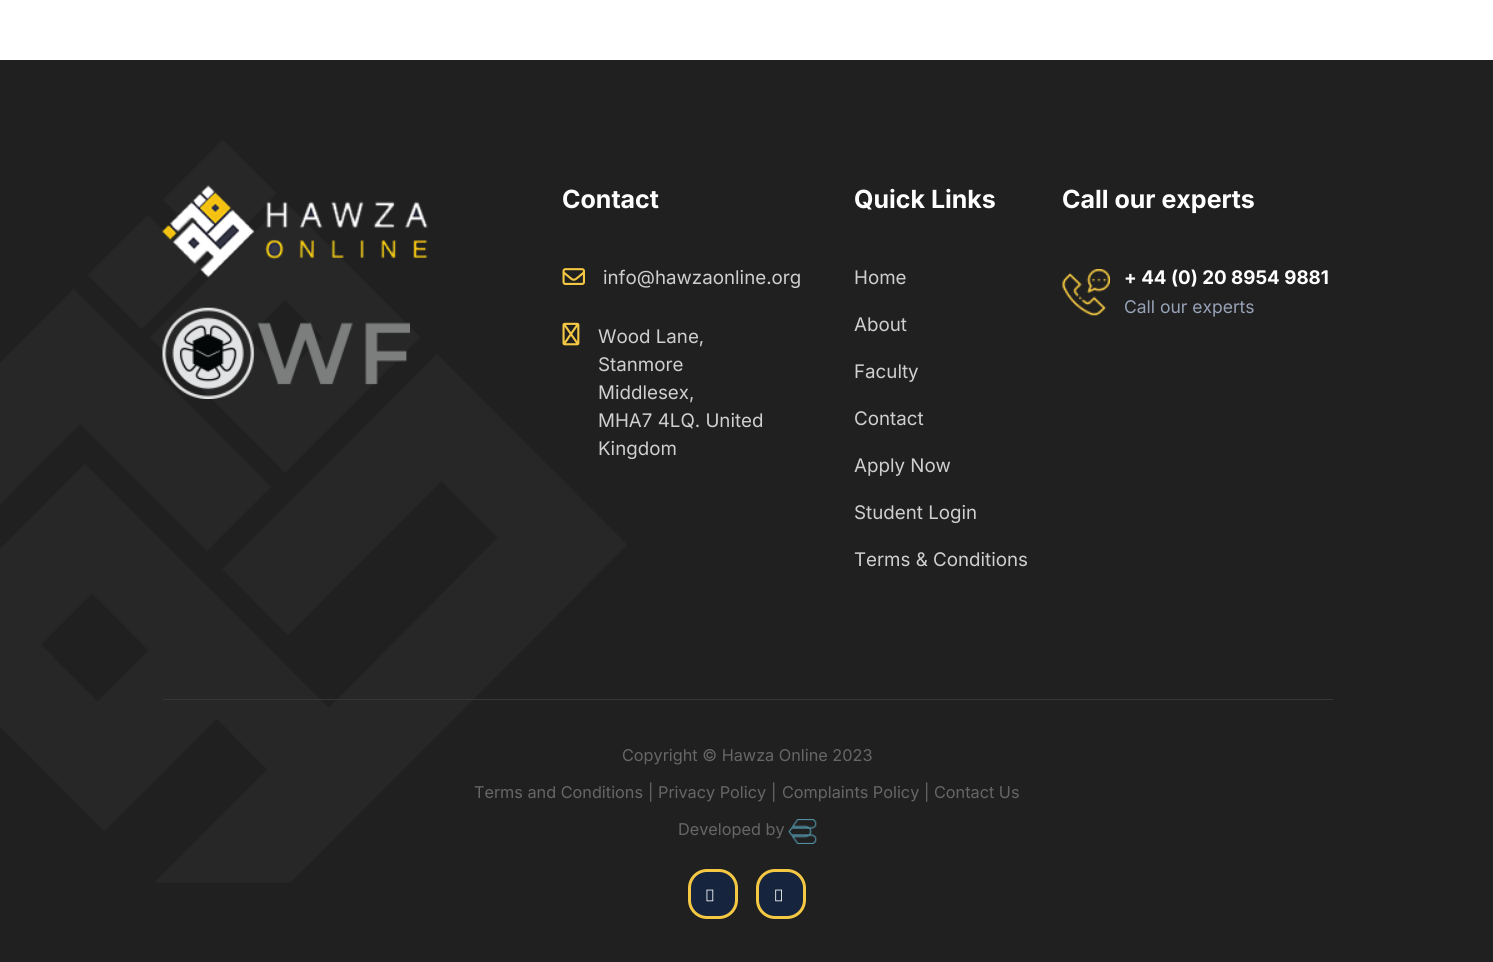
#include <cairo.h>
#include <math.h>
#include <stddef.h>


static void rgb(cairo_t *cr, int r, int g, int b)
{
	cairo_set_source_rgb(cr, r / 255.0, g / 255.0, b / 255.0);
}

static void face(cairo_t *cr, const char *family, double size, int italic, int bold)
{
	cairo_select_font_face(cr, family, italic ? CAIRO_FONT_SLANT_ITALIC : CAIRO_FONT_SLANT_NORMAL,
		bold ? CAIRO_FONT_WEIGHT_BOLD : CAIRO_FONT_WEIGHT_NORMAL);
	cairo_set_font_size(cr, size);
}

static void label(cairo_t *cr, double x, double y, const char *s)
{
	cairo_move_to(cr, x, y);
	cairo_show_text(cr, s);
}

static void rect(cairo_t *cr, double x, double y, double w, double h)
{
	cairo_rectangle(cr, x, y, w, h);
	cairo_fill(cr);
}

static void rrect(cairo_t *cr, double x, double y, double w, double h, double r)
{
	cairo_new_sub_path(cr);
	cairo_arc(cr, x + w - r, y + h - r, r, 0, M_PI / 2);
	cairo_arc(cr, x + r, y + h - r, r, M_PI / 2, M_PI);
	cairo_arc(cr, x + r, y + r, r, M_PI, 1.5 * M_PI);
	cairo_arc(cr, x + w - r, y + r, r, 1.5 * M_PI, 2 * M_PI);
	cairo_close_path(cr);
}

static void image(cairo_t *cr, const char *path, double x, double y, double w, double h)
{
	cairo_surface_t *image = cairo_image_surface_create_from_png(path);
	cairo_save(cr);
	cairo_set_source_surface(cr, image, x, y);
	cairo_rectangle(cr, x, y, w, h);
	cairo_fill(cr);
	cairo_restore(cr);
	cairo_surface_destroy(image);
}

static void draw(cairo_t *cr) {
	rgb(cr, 255, 255, 255);
	cairo_paint(cr);
	rgb(cr, 32, 32, 32);
	rect(cr, 0, 60, 1493, 902);
	image(cr, "image0.png", 0, 140, 627, 743);
	image(cr, "image1.png", 162, 185, 266, 93);
	image(cr, "image2.png", 162, 307, 248, 92);
	face(cr, "Inter", 25, 0, 1);
	rgb(cr, 255, 255, 255);
	label(cr, 562, 208, "Contact");
	image(cr, "image3.png", 562, 268, 23, 17);
	face(cr, "Inter", 18.75, 0, 0);
	rgb(cr, 208, 207, 207);
	label(cr, 603, 284, "info@hawzaonline.org");
	image(cr, "image4.png", 562, 322, 18, 24);
	label(cr, 598, 343, "Wood Lane,");
	label(cr, 598, 371, "Stanmore");
	label(cr, 598, 399, "Middlesex,");
	label(cr, 598, 427, "MHA7 4LQ. United");
	label(cr, 598, 455, "Kingdom");
	face(cr, "Inter", 25, 0, 1);
	rgb(cr, 255, 255, 255);
	label(cr, 854, 208, "Quick Links");
	face(cr, "Inter", 18.75, 0, 0);
	rgb(cr, 208, 207, 207);
	label(cr, 854, 284, "Home");
	label(cr, 854, 331, "About");
	label(cr, 854, 378, "Faculty");
	label(cr, 854, 425, "Contact");
	label(cr, 854, 472, "Apply Now");
	label(cr, 854, 519, "Student Login");
	label(cr, 854, 566, "Terms & Conditions");
	face(cr, "Inter", 25, 0, 1);
	rgb(cr, 255, 255, 255);
	label(cr, 1062, 208, "Call our experts");
	image(cr, "image5.png", 1062, 269, 48, 47);
	face(cr, "Inter", 18.75, 0, 1);
	label(cr, 1124, 284, "+ 44 (0) 20 8954 9881");
	face(cr, "Inter", 17.5, 0, 0);
	rgb(cr, 151, 162, 183);
	label(cr, 1124, 313, "Call our experts");
	rgb(cr, 55, 55, 55);
	rect(cr, 163, 699, 1170, 1);
	face(cr, "Inter", 16.25, 0, 0);
	rgb(cr, 102, 102, 102);
	label(cr, 622, 761, "Copyright © Hawza Online 2023");
	label(cr, 474, 798, "Terms and Conditions");
	label(cr, 648, 798, "|");
	label(cr, 658, 798, "Privacy Policy");
	label(cr, 771, 798, "|");
	label(cr, 782, 798, "Complaints Policy");
	label(cr, 924, 798, "|");
	label(cr, 934, 798, "Contact Us");
	label(cr, 678, 835, "Developed by");
	image(cr, "image6.png", 788, 819, 29, 25);
	rgb(cr, 22, 36, 61);
	rrect(cr, 689.5, 870.5, 47, 47, 17.5);
	cairo_fill_preserve(cr);
	rgb(cr, 244, 200, 67);
	cairo_set_line_width(cr, 3);
	cairo_stroke(cr);
	image(cr, "image7.png", 706, 889, 8, 13);
	rgb(cr, 22, 36, 61);
	rrect(cr, 757.5, 870.5, 47, 47, 17.5);
	cairo_fill_preserve(cr);
	rgb(cr, 244, 200, 67);
	cairo_stroke(cr);
	image(cr, "image8.png", 775, 889, 7, 13);
}

int main(void) {
	cairo_surface_t *surface = cairo_image_surface_create(CAIRO_FORMAT_RGB24, 1493, 962);
	cairo_t *cr = cairo_create(surface);
	cairo_font_options_t *options = cairo_font_options_create();
	cairo_font_options_set_hint_metrics(options, CAIRO_HINT_METRICS_OFF);
	cairo_font_options_set_hint_style(options, CAIRO_HINT_STYLE_NONE);
	cairo_set_font_options(cr, options);
	cairo_set_miter_limit(cr, 4);
	draw(cr);
	cairo_surface_write_to_png(surface, "render.png");
	cairo_font_options_destroy(options);
	cairo_destroy(cr);
	cairo_surface_destroy(surface);
	return 0;
}
